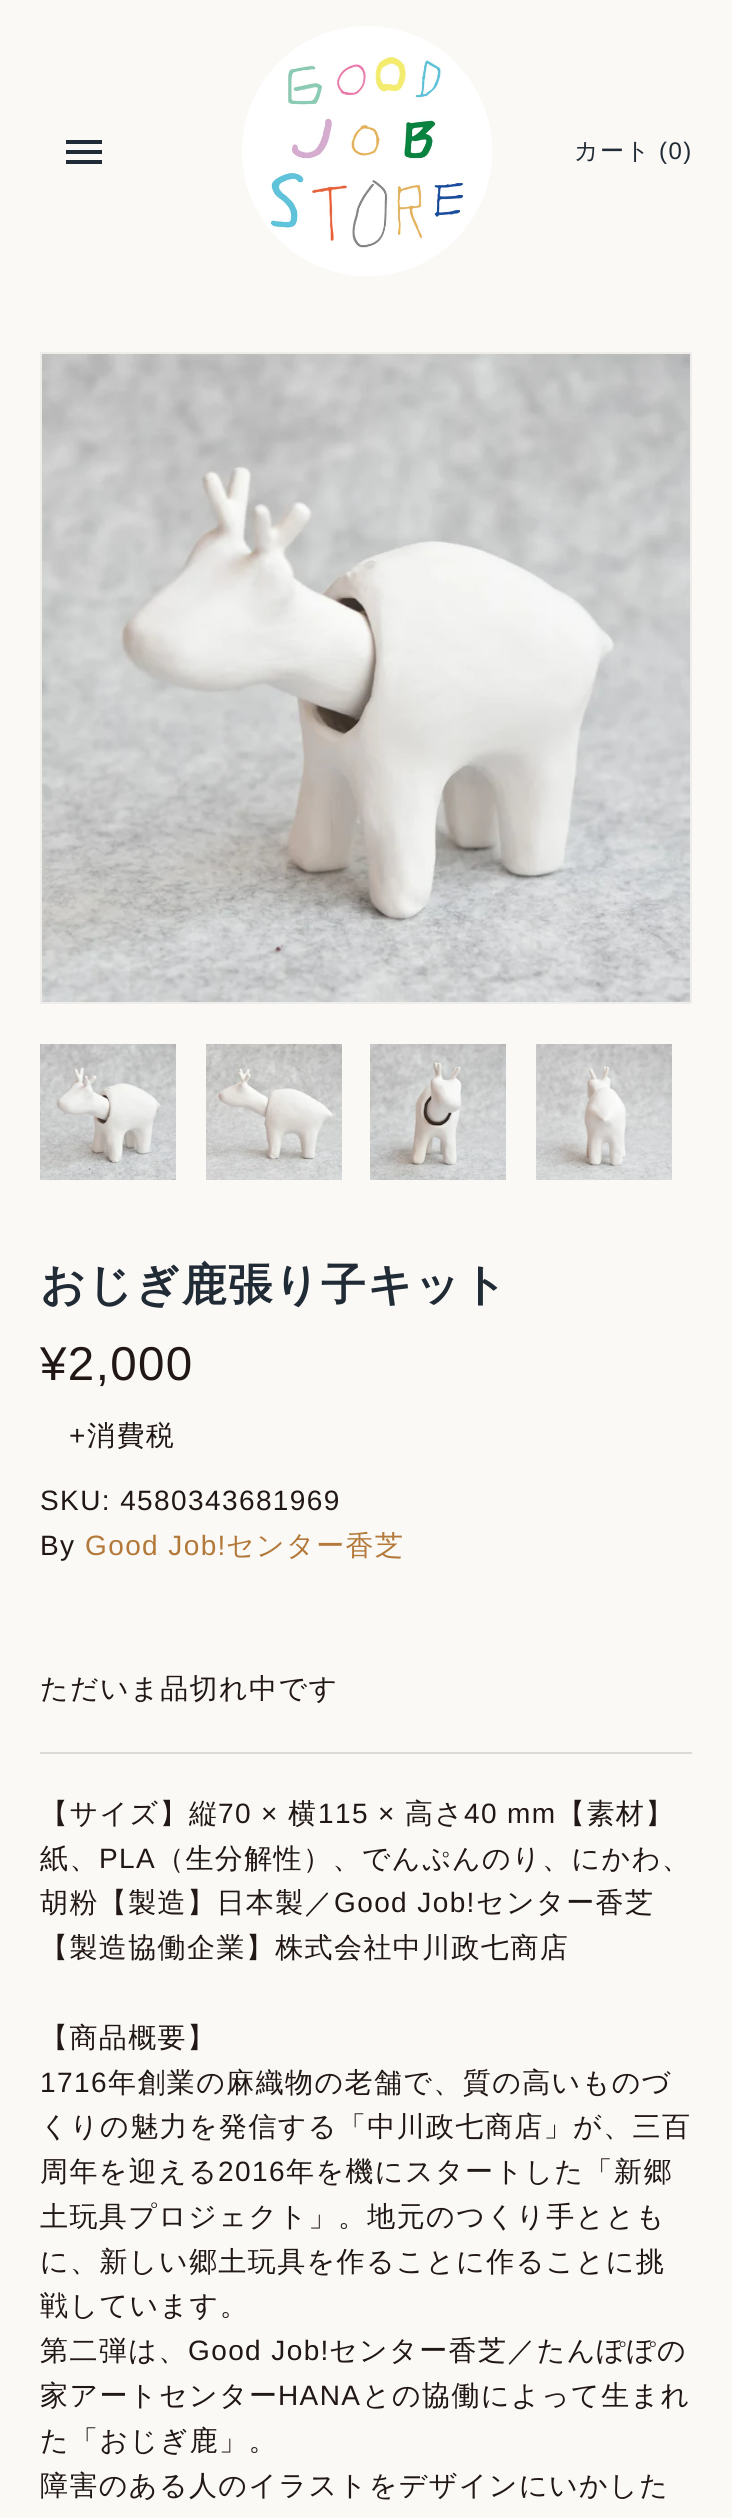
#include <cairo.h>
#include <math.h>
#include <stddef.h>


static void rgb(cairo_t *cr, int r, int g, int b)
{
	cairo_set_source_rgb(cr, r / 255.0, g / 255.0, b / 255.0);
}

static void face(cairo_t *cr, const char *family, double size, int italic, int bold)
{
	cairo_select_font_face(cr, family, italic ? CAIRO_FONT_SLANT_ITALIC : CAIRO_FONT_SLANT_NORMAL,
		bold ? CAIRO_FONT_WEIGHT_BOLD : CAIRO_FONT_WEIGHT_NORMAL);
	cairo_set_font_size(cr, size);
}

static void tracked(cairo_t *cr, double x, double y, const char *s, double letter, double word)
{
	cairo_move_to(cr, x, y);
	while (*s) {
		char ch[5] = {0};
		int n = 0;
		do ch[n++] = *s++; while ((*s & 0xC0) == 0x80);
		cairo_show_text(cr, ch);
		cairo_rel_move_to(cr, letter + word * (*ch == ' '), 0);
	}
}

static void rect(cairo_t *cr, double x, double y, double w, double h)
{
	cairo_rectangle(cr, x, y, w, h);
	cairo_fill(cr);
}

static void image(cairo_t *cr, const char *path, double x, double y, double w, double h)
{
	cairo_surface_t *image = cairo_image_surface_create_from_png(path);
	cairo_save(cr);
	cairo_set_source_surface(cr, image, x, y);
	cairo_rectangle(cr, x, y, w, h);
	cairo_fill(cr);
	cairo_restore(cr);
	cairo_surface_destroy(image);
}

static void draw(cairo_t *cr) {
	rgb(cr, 250, 249, 245);
	cairo_paint(cr);
	rgb(cr, 33, 43, 54);
	cairo_new_path(cr);
	cairo_move_to(cr, 66, 164);
	cairo_line_to(cr, 102, 164);
	cairo_line_to(cr, 102, 160);
	cairo_line_to(cr, 66, 160);
	cairo_close_path(cr);
	cairo_move_to(cr, 66, 154);
	cairo_line_to(cr, 102, 154);
	cairo_line_to(cr, 102, 150);
	cairo_line_to(cr, 66, 150);
	cairo_close_path(cr);
	cairo_move_to(cr, 66, 140);
	cairo_line_to(cr, 66, 144);
	cairo_line_to(cr, 102, 144);
	cairo_line_to(cr, 102, 140);
	cairo_close_path(cr);
	cairo_fill(cr);
	image(cr, "image0.png", 242, 26, 250, 250);
	face(cr, "WenQuanYi Zen Hei Medium", 24, 0, 0);
	tracked(cr, 574, 159, "カート", 1.4, 0);
	face(cr, "Liberation Sans", 24, 0, 0);
	tracked(cr, 659, 159, "(0)", 1.4, 0);
	cairo_rectangle(cr, 41, 353, 650, 650);
	rgb(cr, 238, 237, 233);
	cairo_stroke(cr);
	image(cr, "image1.png", 42, 354, 648, 648);
	image(cr, "image2.png", 40, 1044, 136, 136);
	image(cr, "image3.png", 206, 1044, 136, 136);
	image(cr, "image4.png", 370, 1044, 136, 136);
	image(cr, "image5.png", 536, 1044, 136, 136);
	face(cr, "WenQuanYi Zen Hei", 44.75, 0, 1);
	rgb(cr, 33, 43, 54);
	tracked(cr, 40, 1300, "おじぎ鹿張り子キット", 1.4, 0);
	face(cr, "Liberation Sans", 47.5, 0, 0);
	rgb(cr, 33, 23, 21);
	tracked(cr, 40, 1380, "¥2,000", 1.4, 0);
	face(cr, "Liberation Sans", 28, 0, 0);
	tracked(cr, 69, 1445, "+", 1.4, 0);
	face(cr, "WenQuanYi Zen Hei Medium", 28, 0, 0);
	tracked(cr, 87, 1445, "消費税", 1.4, 0);
	face(cr, "Liberation Sans", 28, 0, 0);
	tracked(cr, 40, 1510, "SKU: 4580343681969", 1.4, 0);
	tracked(cr, 40, 1555, "By", 1.4, 0);
	rgb(cr, 179, 121, 59);
	tracked(cr, 85, 1555, "Good Job!", 1.4, 0);
	face(cr, "WenQuanYi Zen Hei Medium", 28, 0, 0);
	tracked(cr, 226, 1555, "センター香芝", 1.4, 0);
	rgb(cr, 33, 23, 21);
	tracked(cr, 40, 1698, "ただいま品切れ中です", 1.4, 0);
	rgb(cr, 219, 218, 215);
	rect(cr, 40, 1752, 652, 2);
	rgb(cr, 33, 23, 21);
	tracked(cr, 40, 1823, "【サイズ】縦", 1.4, 0);
	face(cr, "Liberation Sans", 28, 0, 0);
	tracked(cr, 218, 1823, "70 ×", 1.4, 0);
	face(cr, "WenQuanYi Zen Hei Medium", 28, 0, 0);
	tracked(cr, 288, 1823, "横", 1.4, 0);
	face(cr, "Liberation Sans", 28, 0, 0);
	tracked(cr, 318, 1823, "115 ×", 1.4, 0);
	face(cr, "WenQuanYi Zen Hei Medium", 28, 0, 0);
	tracked(cr, 405, 1823, "高さ", 1.4, 0);
	face(cr, "Liberation Sans", 28, 0, 0);
	tracked(cr, 464, 1823, "40 mm", 1.4, 0);
	face(cr, "WenQuanYi Zen Hei Medium", 28, 0, 0);
	tracked(cr, 557, 1823, "【素材】", 1.4, 0);
	tracked(cr, 40, 1868, "紙、", 1.4, 0);
	face(cr, "Liberation Sans", 28, 0, 0);
	tracked(cr, 99, 1868, "PLA", 1.4, 0);
	face(cr, "WenQuanYi Zen Hei Medium", 28, 0, 0);
	tracked(cr, 156, 1868, "（生分解性）、でんぷんのり、にかわ、", 1.4, 0);
	tracked(cr, 40, 1912, "胡粉【製造】日本製／", 1.4, 0);
	face(cr, "Liberation Sans", 28, 0, 0);
	tracked(cr, 334, 1912, "Good Job!", 1.4, 0);
	face(cr, "WenQuanYi Zen Hei Medium", 28, 0, 0);
	tracked(cr, 476, 1912, "センター香芝", 1.4, 0);
	tracked(cr, 40, 1957, "【製造協働企業】株式会社中川政七商店", 1.4, 0);
	tracked(cr, 40, 2047, "【商品概要】", 1.4, 0);
	face(cr, "Liberation Sans", 28, 0, 0);
	tracked(cr, 40, 2092, "1716", 1.4, 0);
	face(cr, "WenQuanYi Zen Hei Medium", 28, 0, 0);
	tracked(cr, 108, 2092, "年創業の麻織物の老舗で、質の高いものづ", 1.4, 0);
	tracked(cr, 40, 2136, "くりの魅力を発信する「中川政七商店」が、三百", 1.4, 0);
	tracked(cr, 40, 2181, "周年を迎える", 1.4, 0);
	face(cr, "Liberation Sans", 28, 0, 0);
	tracked(cr, 218, 2181, "2016", 1.4, 0);
	face(cr, "WenQuanYi Zen Hei Medium", 28, 0, 0);
	tracked(cr, 286, 2181, "年を機にスタートした「新郷", 1.4, 0);
	tracked(cr, 40, 2226, "土玩具プロジェクト」。地元のつくり手ととも", 1.4, 0);
	tracked(cr, 40, 2271, "に、新しい郷土玩具を作ることに作ることに挑", 1.4, 0);
	tracked(cr, 40, 2315, "戦しています。", 1.4, 0);
	tracked(cr, 40, 2360, "第二弾は、", 1.4, 0);
	face(cr, "Liberation Sans", 28, 0, 0);
	tracked(cr, 188, 2360, "Good Job!", 1.4, 0);
	face(cr, "WenQuanYi Zen Hei Medium", 28, 0, 0);
	tracked(cr, 329, 2360, "センター香芝／たんぽぽの", 1.4, 0);
	tracked(cr, 40, 2405, "家アートセンター", 1.4, 0);
	face(cr, "Liberation Sans", 28, 0, 0);
	tracked(cr, 278, 2405, "HANA", 1.4, 0);
	face(cr, "WenQuanYi Zen Hei Medium", 28, 0, 0);
	tracked(cr, 362, 2405, "との協働によって生まれ", 1.4, 0);
	tracked(cr, 40, 2450, "た「おじぎ鹿」。", 1.4, 0);
	tracked(cr, 40, 2495, "障害のある人のイラストをデザインにいかした", 1.4, 0);
}

int main(void) {
	cairo_surface_t *surface = cairo_image_surface_create(CAIRO_FORMAT_RGB24, 732, 2518);
	cairo_t *cr = cairo_create(surface);
	cairo_font_options_t *options = cairo_font_options_create();
	cairo_font_options_set_hint_metrics(options, CAIRO_HINT_METRICS_OFF);
	cairo_font_options_set_hint_style(options, CAIRO_HINT_STYLE_NONE);
	cairo_set_font_options(cr, options);
	cairo_set_miter_limit(cr, 4);
	draw(cr);
	cairo_surface_write_to_png(surface, "render.png");
	cairo_font_options_destroy(options);
	cairo_destroy(cr);
	cairo_surface_destroy(surface);
	return 0;
}
